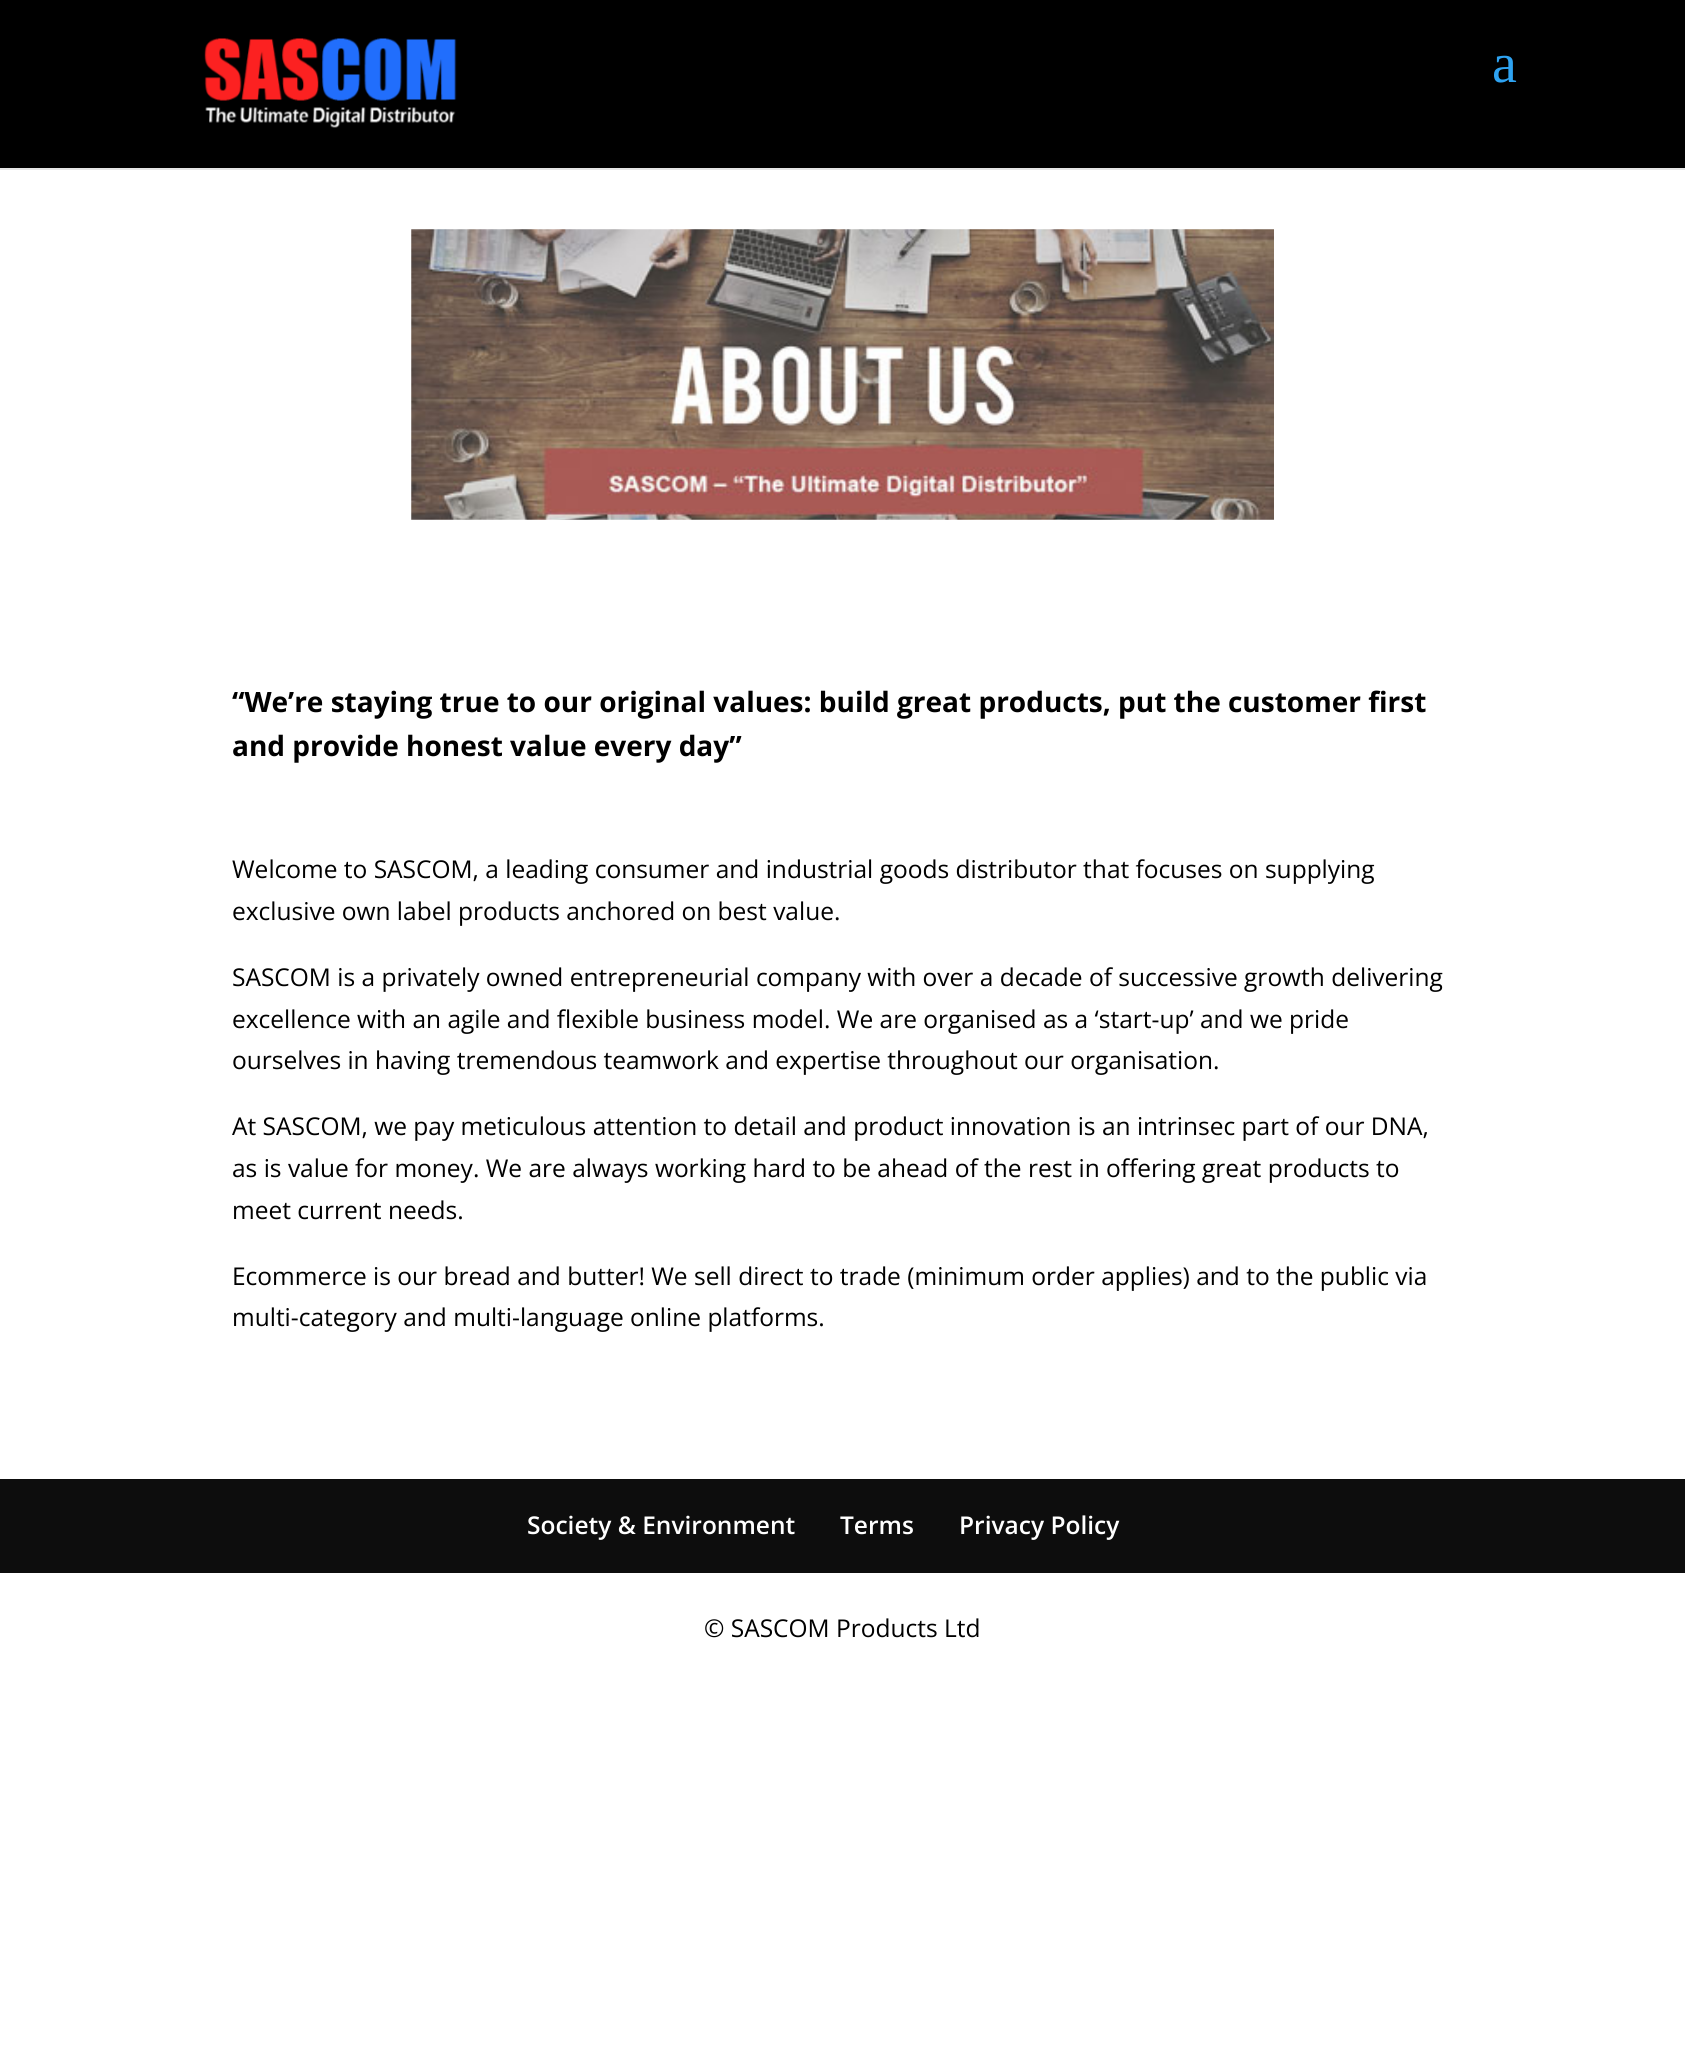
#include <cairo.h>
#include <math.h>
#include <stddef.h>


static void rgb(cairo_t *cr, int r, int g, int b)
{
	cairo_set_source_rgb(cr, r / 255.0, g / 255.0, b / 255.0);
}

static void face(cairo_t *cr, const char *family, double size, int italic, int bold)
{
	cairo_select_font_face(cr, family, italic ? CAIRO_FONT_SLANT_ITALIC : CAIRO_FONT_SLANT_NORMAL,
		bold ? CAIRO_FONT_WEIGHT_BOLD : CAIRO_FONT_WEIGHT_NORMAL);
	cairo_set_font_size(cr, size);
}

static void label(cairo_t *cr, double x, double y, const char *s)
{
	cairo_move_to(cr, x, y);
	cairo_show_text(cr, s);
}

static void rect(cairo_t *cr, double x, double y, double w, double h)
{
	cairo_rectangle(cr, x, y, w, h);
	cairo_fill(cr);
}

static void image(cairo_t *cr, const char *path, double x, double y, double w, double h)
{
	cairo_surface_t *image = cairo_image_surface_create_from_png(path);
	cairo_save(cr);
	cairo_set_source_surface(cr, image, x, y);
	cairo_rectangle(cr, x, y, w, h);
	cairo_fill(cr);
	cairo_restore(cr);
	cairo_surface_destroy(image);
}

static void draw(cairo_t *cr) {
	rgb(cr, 255, 255, 255);
	cairo_paint(cr);
	rgb(cr, 230, 230, 230);
	rect(cr, 0, 168, 1685, 2);
	rgb(cr, 0, 0, 0);
	rect(cr, 0, 0, 1685, 168);
	image(cr, "image0.png", 204, 38, 253, 90);
	face(cr, "Liberation Serif", 56, 0, 0);
	rgb(cr, 46, 163, 242);
	label(cr, 1492, 82, "a");
	image(cr, "image1.png", 411, 229, 863, 291);
	face(cr, "Open Sans", 28, 0, 1);
	rgb(cr, 0, 0, 0);
	label(cr, 232, 712, "“We’re staying true to our original values: build great products, put the customer first");
	label(cr, 232, 756, "and provide honest value every day”");
	face(cr, "Open Sans", 24.5, 0, 0);
	label(cr, 232, 878, "Welcome to SASCOM, a leading consumer and industrial goods distributor that focuses on supplying");
	label(cr, 232, 920, "exclusive own label products anchored on best value.");
	label(cr, 232, 986, "SASCOM is a privately owned entrepreneurial company with over a decade of successive growth delivering");
	label(cr, 232, 1028, "excellence with an agile and flexible business model. We are organised as a ‘start-up’ and we pride");
	label(cr, 232, 1069, "ourselves in having tremendous teamwork and expertise throughout our organisation.");
	label(cr, 232, 1135, "At SASCOM, we pay meticulous attention to detail and product innovation is an intrinsec part of our DNA,");
	label(cr, 232, 1177, "as is value for money. We are always working hard to be ahead of the rest in offering great products to");
	label(cr, 232, 1219, "meet current needs.");
	label(cr, 232, 1285, "Ecommerce is our bread and butter! We sell direct to trade (minimum order applies) and to the public via");
	label(cr, 232, 1326, "multi-category and multi-language online platforms.");
	rgb(cr, 13, 13, 13);
	rect(cr, 0, 1479, 1685, 94);
	face(cr, "Open Sans SemiBold", 24.5, 0, 0);
	rgb(cr, 255, 255, 255);
	label(cr, 527, 1534, "Society & Environment");
	label(cr, 840, 1534, "Terms");
	label(cr, 959, 1534, "Privacy Policy");
	face(cr, "Open Sans", 24.5, 0, 0);
	rgb(cr, 0, 0, 0);
	label(cr, 704, 1637, "© SASCOM Products Ltd");
}

int main(void) {
	cairo_surface_t *surface = cairo_image_surface_create(CAIRO_FORMAT_RGB24, 1685, 2058);
	cairo_t *cr = cairo_create(surface);
	cairo_font_options_t *options = cairo_font_options_create();
	cairo_font_options_set_hint_metrics(options, CAIRO_HINT_METRICS_OFF);
	cairo_font_options_set_hint_style(options, CAIRO_HINT_STYLE_NONE);
	cairo_set_font_options(cr, options);
	cairo_set_miter_limit(cr, 4);
	draw(cr);
	cairo_surface_write_to_png(surface, "render.png");
	cairo_font_options_destroy(options);
	cairo_destroy(cr);
	cairo_surface_destroy(surface);
	return 0;
}
